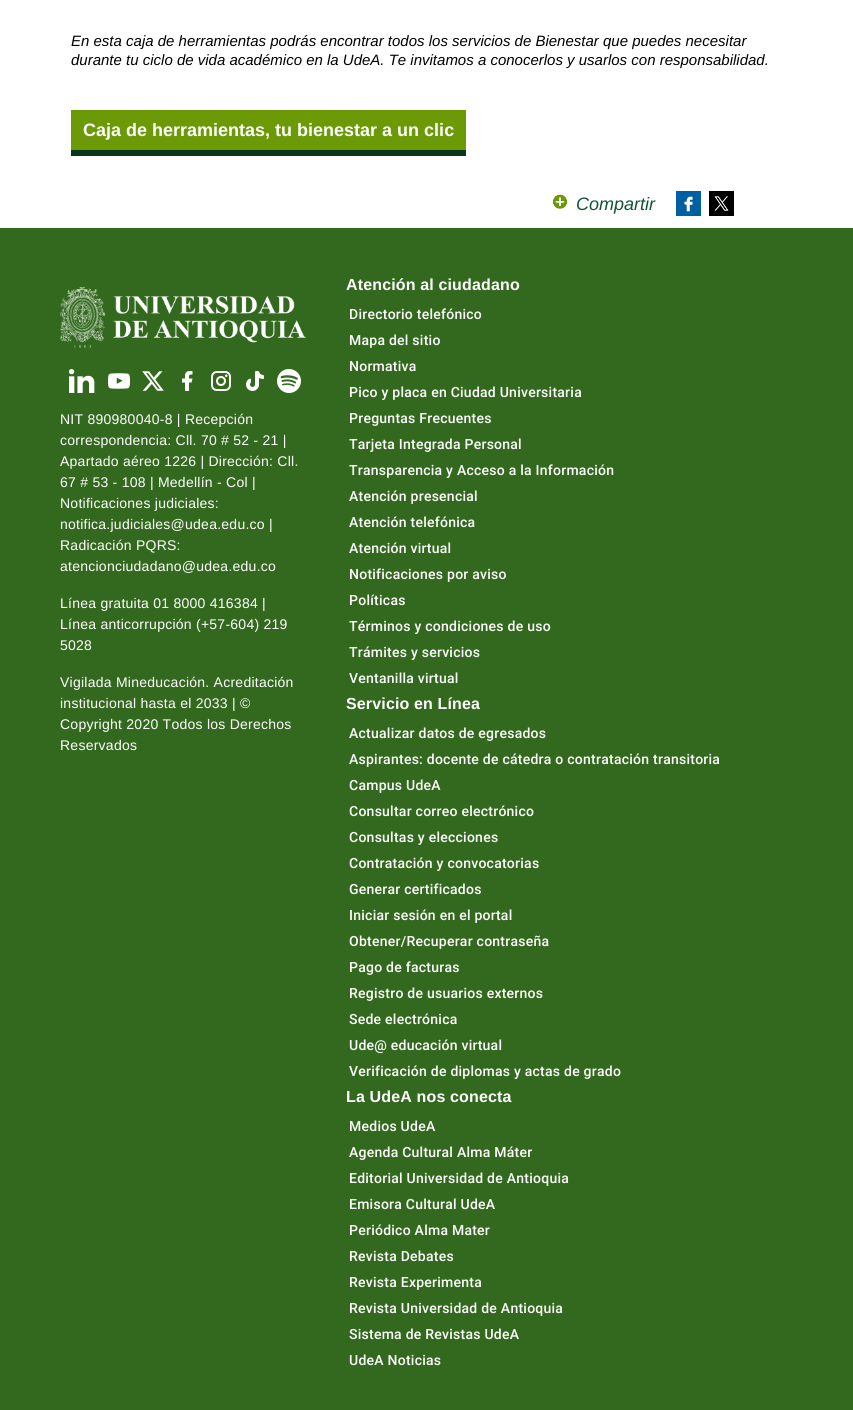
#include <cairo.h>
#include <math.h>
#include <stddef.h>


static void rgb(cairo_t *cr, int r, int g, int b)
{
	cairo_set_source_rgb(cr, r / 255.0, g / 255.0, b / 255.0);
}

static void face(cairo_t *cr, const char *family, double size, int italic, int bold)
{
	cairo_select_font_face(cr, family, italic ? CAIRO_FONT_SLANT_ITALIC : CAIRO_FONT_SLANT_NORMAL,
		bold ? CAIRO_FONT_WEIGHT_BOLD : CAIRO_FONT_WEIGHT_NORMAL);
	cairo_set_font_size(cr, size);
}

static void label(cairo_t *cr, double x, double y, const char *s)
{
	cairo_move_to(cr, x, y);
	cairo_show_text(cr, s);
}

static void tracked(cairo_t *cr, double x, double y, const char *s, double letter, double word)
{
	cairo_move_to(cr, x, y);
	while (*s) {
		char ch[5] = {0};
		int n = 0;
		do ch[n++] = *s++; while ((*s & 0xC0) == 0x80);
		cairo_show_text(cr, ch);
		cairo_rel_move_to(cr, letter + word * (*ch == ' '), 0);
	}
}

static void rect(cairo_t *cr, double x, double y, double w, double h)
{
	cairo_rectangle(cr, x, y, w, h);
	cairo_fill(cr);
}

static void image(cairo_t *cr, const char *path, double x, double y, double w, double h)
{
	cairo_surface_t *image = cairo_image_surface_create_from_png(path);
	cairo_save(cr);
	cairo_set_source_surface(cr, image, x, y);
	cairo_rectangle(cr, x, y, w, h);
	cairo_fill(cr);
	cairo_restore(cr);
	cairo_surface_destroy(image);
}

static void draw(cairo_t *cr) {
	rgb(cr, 255, 255, 255);
	cairo_paint(cr);
	face(cr, "Liberation Sans", 15, 1, 0);
	rgb(cr, 0, 0, 0);
	label(cr, 71, 46, "En esta caja de herramientas podrás encontrar todos los servicios de Bienestar que puedes necesitar");
	label(cr, 71, 65, "durante tu ciclo de vida académico en la UdeA. Te invitamos a conocerlos y usarlos con responsabilidad.");
	rgb(cr, 108, 154, 6);
	rect(cr, 71, 110, 395, 40);
	face(cr, "Liberation Sans", 18, 0, 1);
	rgb(cr, 255, 255, 255);
	label(cr, 83, 136, "Caja de herramientas, tu bienestar a un clic");
	rgb(cr, 10, 53, 28);
	rect(cr, 71, 150, 395, 6);
	image(cr, "image0.png", 553, 194, 15, 15);
	face(cr, "Liberation Sans", 18, 1, 0);
	rgb(cr, 15, 85, 49);
	label(cr, 576, 210, "Compartir");
	image(cr, "image1.png", 676, 191, 25, 25);
	image(cr, "image2.png", 709, 191, 25, 25);
	rgb(cr, 51, 105, 30);
	rect(cr, 0, 228, 853, 1182);
	image(cr, "image3.png", 60, 287, 246, 61);
	image(cr, "image4.png", 68, 369, 27, 24);
	image(cr, "image5.png", 108, 373, 22, 16);
	image(cr, "image6.png", 142, 371, 22, 20);
	image(cr, "image7.png", 182, 371, 11, 20);
	image(cr, "image8.png", 211, 371, 20, 20);
	image(cr, "image9.png", 246, 371, 18, 20);
	image(cr, "image10.png", 277, 369, 24, 24);
	face(cr, "Liberation Sans", 14, 0, 0);
	rgb(cr, 255, 255, 255);
	tracked(cr, 60, 424, "NIT 890980040-8 | Recepción", 0.25, 0);
	tracked(cr, 60, 445, "correspondencia: Cll. 70 # 52 - 21 |", 0.25, 0);
	tracked(cr, 60, 466, "Apartado aéreo 1226 | Dirección: Cll.", 0.25, 0);
	tracked(cr, 60, 487, "67 # 53 - 108 | Medellín - Col |", 0.25, 0);
	tracked(cr, 60, 508, "Notificaciones judiciales:", 0.25, 0);
	tracked(cr, 60, 529, "notifica.judiciales@udea.edu.co |", 0.25, 0);
	tracked(cr, 60, 550, "Radicación PQRS:", 0.25, 0);
	tracked(cr, 60, 571, "atencionciudadano@udea.edu.co", 0.25, 0);
	tracked(cr, 60, 608, "Línea gratuita 01 8000 416384 |", 0.25, 0);
	tracked(cr, 60, 629, "Línea anticorrupción (+57-604) 219", 0.25, 0);
	tracked(cr, 60, 650, "5028", 0.25, 0);
	tracked(cr, 60, 687, "Vigilada Mineducación. Acreditación", 0.25, 0);
	tracked(cr, 60, 708, "institucional hasta el 2033 | ©", 0.25, 0);
	tracked(cr, 60, 729, "Copyright 2020 Todos los Derechos", 0.25, 0);
	tracked(cr, 60, 750, "Reservados", 0.25, 0);
	face(cr, "Liberation Sans", 16, 0, 1);
	tracked(cr, 346, 290, "Atención al ciudadano", 0.15, 0);
	face(cr, "Roboto Medium", 14, 0, 0);
	tracked(cr, 349, 319, "Directorio telefónico", 0.25, 0);
	tracked(cr, 349, 345, "Mapa del sitio", 0.25, 0);
	tracked(cr, 349, 371, "Normativa", 0.25, 0);
	tracked(cr, 349, 397, "Pico y placa en Ciudad Universitaria", 0.25, 0);
	tracked(cr, 349, 423, "Preguntas Frecuentes", 0.25, 0);
	tracked(cr, 349, 449, "Tarjeta Integrada Personal", 0.25, 0);
	tracked(cr, 349, 475, "Transparencia y Acceso a la Información", 0.25, 0);
	tracked(cr, 349, 501, "Atención presencial", 0.25, 0);
	tracked(cr, 349, 527, "Atención telefónica", 0.25, 0);
	tracked(cr, 349, 553, "Atención virtual", 0.25, 0);
	tracked(cr, 349, 579, "Notificaciones por aviso", 0.25, 0);
	tracked(cr, 349, 605, "Políticas", 0.25, 0);
	tracked(cr, 349, 631, "Términos y condiciones de uso", 0.25, 0);
	tracked(cr, 349, 657, "Trámites y servicios", 0.25, 0);
	tracked(cr, 349, 683, "Ventanilla virtual", 0.25, 0);
	face(cr, "Liberation Sans", 16, 0, 1);
	tracked(cr, 346, 709, "Servicio en Línea", 0.15, 0);
	face(cr, "Roboto Medium", 14, 0, 0);
	tracked(cr, 349, 738, "Actualizar datos de egresados", 0.25, 0);
	tracked(cr, 349, 764, "Aspirantes: docente de cátedra o contratación transitoria", 0.25, 0);
	tracked(cr, 349, 790, "Campus UdeA", 0.25, 0);
	tracked(cr, 349, 816, "Consultar correo electrónico", 0.25, 0);
	tracked(cr, 349, 842, "Consultas y elecciones", 0.25, 0);
	tracked(cr, 349, 868, "Contratación y convocatorias", 0.25, 0);
	tracked(cr, 349, 894, "Generar certificados", 0.25, 0);
	tracked(cr, 349, 920, "Iniciar sesión en el portal", 0.25, 0);
	tracked(cr, 349, 946, "Obtener/Recuperar contraseña", 0.25, 0);
	tracked(cr, 349, 972, "Pago de facturas", 0.25, 0);
	tracked(cr, 349, 998, "Registro de usuarios externos", 0.25, 0);
	tracked(cr, 349, 1024, "Sede electrónica", 0.25, 0);
	tracked(cr, 349, 1050, "Ude@ educación virtual", 0.25, 0);
	tracked(cr, 349, 1076, "Verificación de diplomas y actas de grado", 0.25, 0);
	face(cr, "Liberation Sans", 16, 0, 1);
	tracked(cr, 346, 1102, "La UdeA nos conecta", 0.15, 0);
	face(cr, "Roboto Medium", 14, 0, 0);
	tracked(cr, 349, 1131, "Medios UdeA", 0.25, 0);
	tracked(cr, 349, 1157, "Agenda Cultural Alma Máter", 0.25, 0);
	tracked(cr, 349, 1183, "Editorial Universidad de Antioquia", 0.25, 0);
	tracked(cr, 349, 1209, "Emisora Cultural UdeA", 0.25, 0);
	tracked(cr, 349, 1235, "Periódico Alma Mater", 0.25, 0);
	tracked(cr, 349, 1261, "Revista Debates", 0.25, 0);
	tracked(cr, 349, 1287, "Revista Experimenta", 0.25, 0);
	tracked(cr, 349, 1313, "Revista Universidad de Antioquia", 0.25, 0);
	tracked(cr, 349, 1339, "Sistema de Revistas UdeA", 0.25, 0);
	tracked(cr, 349, 1365, "UdeA Noticias", 0.25, 0);
}

int main(void) {
	cairo_surface_t *surface = cairo_image_surface_create(CAIRO_FORMAT_RGB24, 853, 1410);
	cairo_t *cr = cairo_create(surface);
	cairo_font_options_t *options = cairo_font_options_create();
	cairo_font_options_set_hint_metrics(options, CAIRO_HINT_METRICS_OFF);
	cairo_font_options_set_hint_style(options, CAIRO_HINT_STYLE_NONE);
	cairo_set_font_options(cr, options);
	cairo_set_miter_limit(cr, 4);
	draw(cr);
	cairo_surface_write_to_png(surface, "render.png");
	cairo_font_options_destroy(options);
	cairo_destroy(cr);
	cairo_surface_destroy(surface);
	return 0;
}
